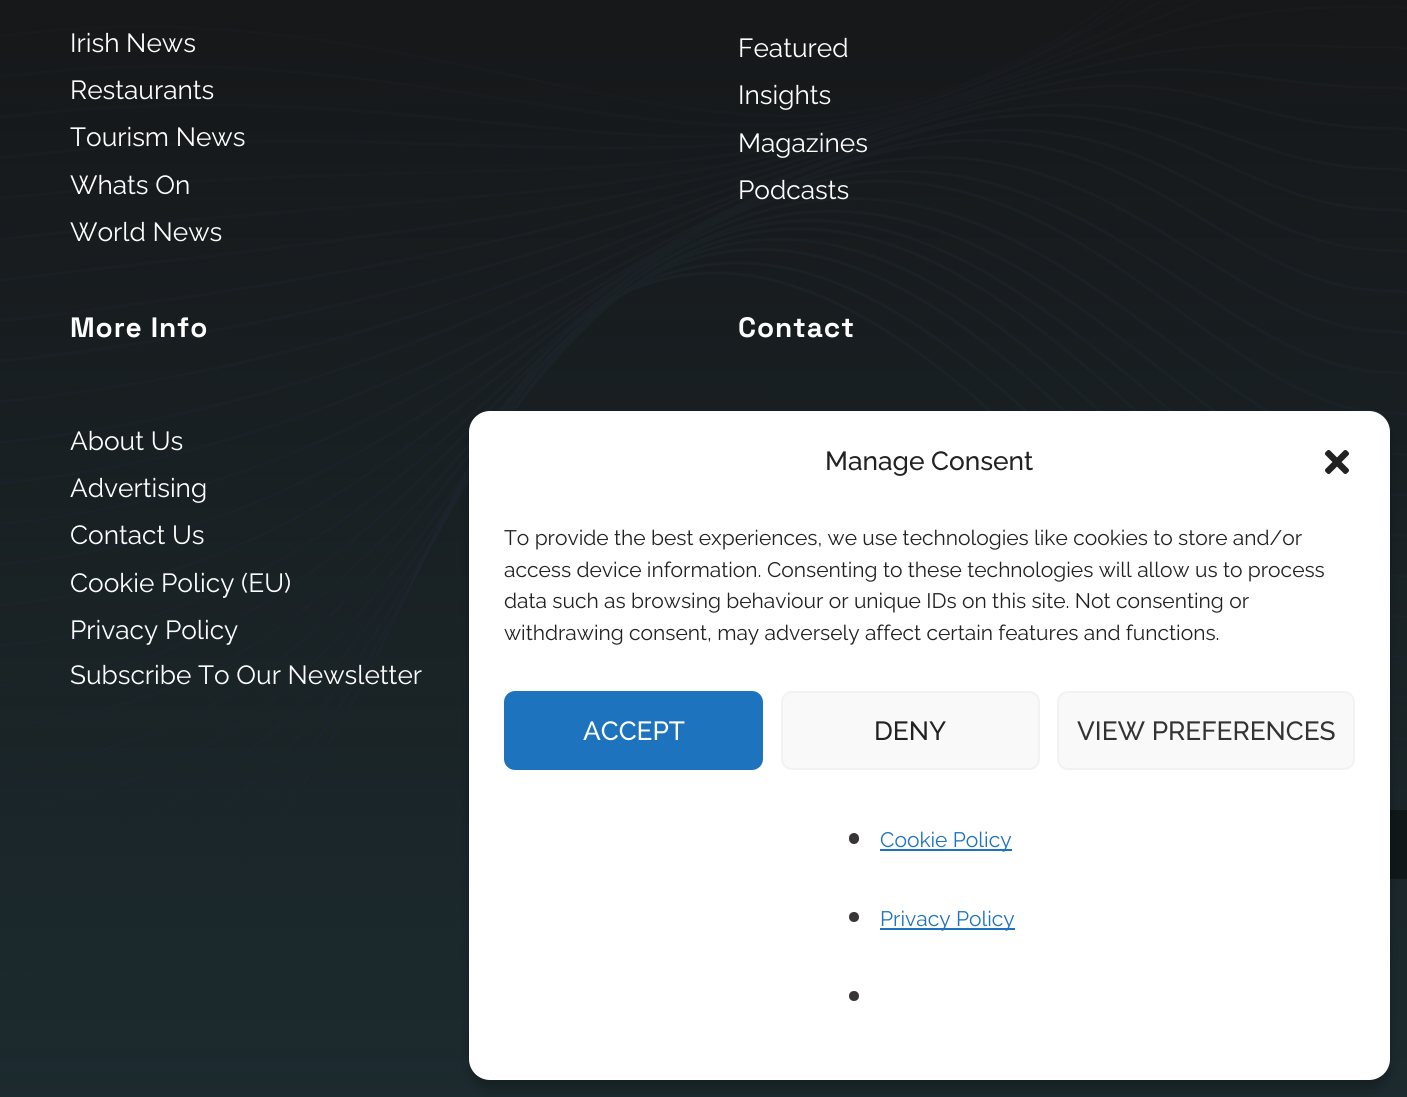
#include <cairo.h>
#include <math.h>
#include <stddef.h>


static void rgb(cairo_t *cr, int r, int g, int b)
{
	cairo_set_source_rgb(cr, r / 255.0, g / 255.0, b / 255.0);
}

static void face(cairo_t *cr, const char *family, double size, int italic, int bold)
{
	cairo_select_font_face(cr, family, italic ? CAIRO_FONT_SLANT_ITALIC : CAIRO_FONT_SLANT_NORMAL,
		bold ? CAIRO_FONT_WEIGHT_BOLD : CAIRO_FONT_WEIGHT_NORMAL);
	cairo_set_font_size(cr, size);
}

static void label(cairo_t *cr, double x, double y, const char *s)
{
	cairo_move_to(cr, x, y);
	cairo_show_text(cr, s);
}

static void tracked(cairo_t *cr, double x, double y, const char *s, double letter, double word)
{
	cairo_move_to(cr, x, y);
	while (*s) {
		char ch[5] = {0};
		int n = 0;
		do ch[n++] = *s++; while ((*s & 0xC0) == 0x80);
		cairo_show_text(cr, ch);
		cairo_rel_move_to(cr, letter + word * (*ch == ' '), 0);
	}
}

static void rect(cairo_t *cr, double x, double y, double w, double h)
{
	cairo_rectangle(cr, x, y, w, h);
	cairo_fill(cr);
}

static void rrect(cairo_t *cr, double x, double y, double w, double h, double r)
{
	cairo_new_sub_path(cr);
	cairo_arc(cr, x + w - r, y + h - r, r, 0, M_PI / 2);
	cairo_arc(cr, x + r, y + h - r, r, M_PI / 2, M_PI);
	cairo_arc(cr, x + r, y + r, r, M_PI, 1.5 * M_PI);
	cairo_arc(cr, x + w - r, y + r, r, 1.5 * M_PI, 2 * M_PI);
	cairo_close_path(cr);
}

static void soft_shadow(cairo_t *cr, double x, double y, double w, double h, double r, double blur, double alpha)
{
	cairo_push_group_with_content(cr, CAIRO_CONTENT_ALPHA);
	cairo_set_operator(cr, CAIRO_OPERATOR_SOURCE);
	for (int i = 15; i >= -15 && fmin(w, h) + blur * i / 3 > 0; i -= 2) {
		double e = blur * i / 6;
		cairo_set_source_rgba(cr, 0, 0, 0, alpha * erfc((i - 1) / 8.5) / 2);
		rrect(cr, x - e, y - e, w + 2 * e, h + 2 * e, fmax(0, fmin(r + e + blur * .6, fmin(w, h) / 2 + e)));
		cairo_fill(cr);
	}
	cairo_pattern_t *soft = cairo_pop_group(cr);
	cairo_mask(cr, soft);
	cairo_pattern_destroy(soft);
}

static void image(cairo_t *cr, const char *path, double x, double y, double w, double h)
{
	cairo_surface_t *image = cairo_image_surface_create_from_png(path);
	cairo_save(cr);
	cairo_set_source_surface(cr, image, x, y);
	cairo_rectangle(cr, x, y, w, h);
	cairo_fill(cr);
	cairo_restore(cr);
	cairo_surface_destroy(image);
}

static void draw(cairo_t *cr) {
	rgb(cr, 40, 61, 67);
	cairo_paint(cr);
	image(cr, "image0.png", 0, 0, 1407, 1097);
	face(cr, "Raleway", 26.25, 0, 0);
	rgb(cr, 255, 255, 255);
	label(cr, 70, 52, "Irish News");
	label(cr, 70, 99, "Restaurants");
	label(cr, 70, 146, "Tourism News");
	label(cr, 70, 194, "Whats On");
	label(cr, 70, 241, "World News");
	label(cr, 738, 57, "Featured");
	label(cr, 738, 104, "Insights");
	label(cr, 738, 152, "Magazines");
	label(cr, 738, 199, "Podcasts");
	face(cr, "Space Grotesk", 28, 0, 1);
	tracked(cr, 70, 337, "More Info", 0.9, 0);
	face(cr, "Raleway", 26.25, 0, 0);
	label(cr, 70, 450, "About Us");
	label(cr, 70, 497, "Advertising");
	label(cr, 70, 544, "Contact Us");
	label(cr, 70, 592, "Cookie Policy (EU)");
	label(cr, 70, 639, "Privacy Policy");
	label(cr, 70, 684, "Subscribe To Our Newsletter");
	face(cr, "Space Grotesk", 28, 0, 1);
	tracked(cr, 738, 337, "Contact", 0.9, 0);
	rgb(cr, 16, 23, 25);
	rect(cr, 1390, 810, 17, 69);
	rgb(cr, 0, 0, 0);
	soft_shadow(cr, 469, 422, 921, 668, 21, 5, 0.23);
	rgb(cr, 255, 255, 255);
	rrect(cr, 469, 411, 921, 669, 21);
	cairo_fill(cr);
	face(cr, "Raleway Medium", 26.25, 0, 0);
	rgb(cr, 34, 34, 34);
	label(cr, 825, 470, "Manage Consent");
	image(cr, "image1.png", 1325, 450, 24, 24);
	face(cr, "Raleway", 21, 0, 0);
	label(cr, 504, 545, "To provide the best experiences, we use technologies like cookies to store and/or");
	label(cr, 504, 577, "access device information. Consenting to these technologies will allow us to process");
	label(cr, 504, 608, "data such as browsing behaviour or unique IDs on this site. Not consenting or");
	label(cr, 504, 640, "withdrawing consent, may adversely affect certain features and functions.");
	rgb(cr, 30, 115, 190);
	rrect(cr, 505, 692, 257, 77, 10);
	cairo_fill_preserve(cr);
	cairo_stroke(cr);
	face(cr, "Raleway Medium", 26.25, 0, 0);
	rgb(cr, 255, 255, 255);
	label(cr, 583, 740, "ACCEPT");
	rgb(cr, 249, 249, 249);
	rrect(cr, 782, 692, 257, 77, 10);
	cairo_fill_preserve(cr);
	rgb(cr, 242, 242, 242);
	cairo_stroke(cr);
	rgb(cr, 34, 34, 34);
	label(cr, 874, 740, "DENY");
	rgb(cr, 249, 249, 249);
	rrect(cr, 1058, 692, 296, 77, 10);
	cairo_fill_preserve(cr);
	rgb(cr, 242, 242, 242);
	cairo_stroke(cr);
	rgb(cr, 51, 51, 51);
	label(cr, 1077, 740, "VIEW PREFERENCES");
	rgb(cr, 57, 53, 54);
	rrect(cr, 849, 833, 10, 11, 5);
	cairo_fill(cr);
	rgb(cr, 30, 115, 190);
	rect(cr, 880, 849, 132, 2);
	face(cr, "Raleway", 21, 0, 0);
	label(cr, 880, 847, "Cookie Policy");
	rgb(cr, 57, 53, 54);
	cairo_new_path(cr);
	cairo_arc(cr, 854, 917, 5, 0, 2 * M_PI);
	cairo_fill(cr);
	rgb(cr, 30, 115, 190);
	rect(cr, 880, 928, 135, 2);
	label(cr, 880, 926, "Privacy Policy");
	rgb(cr, 57, 53, 54);
	cairo_new_path(cr);
	cairo_arc(cr, 854, 996, 5, 0, 2 * M_PI);
	cairo_fill(cr);
}

int main(void) {
	cairo_surface_t *surface = cairo_image_surface_create(CAIRO_FORMAT_RGB24, 1407, 1097);
	cairo_t *cr = cairo_create(surface);
	cairo_font_options_t *options = cairo_font_options_create();
	cairo_font_options_set_hint_metrics(options, CAIRO_HINT_METRICS_OFF);
	cairo_font_options_set_hint_style(options, CAIRO_HINT_STYLE_NONE);
	cairo_set_font_options(cr, options);
	cairo_set_miter_limit(cr, 4);
	draw(cr);
	cairo_surface_write_to_png(surface, "render.png");
	cairo_font_options_destroy(options);
	cairo_destroy(cr);
	cairo_surface_destroy(surface);
	return 0;
}
